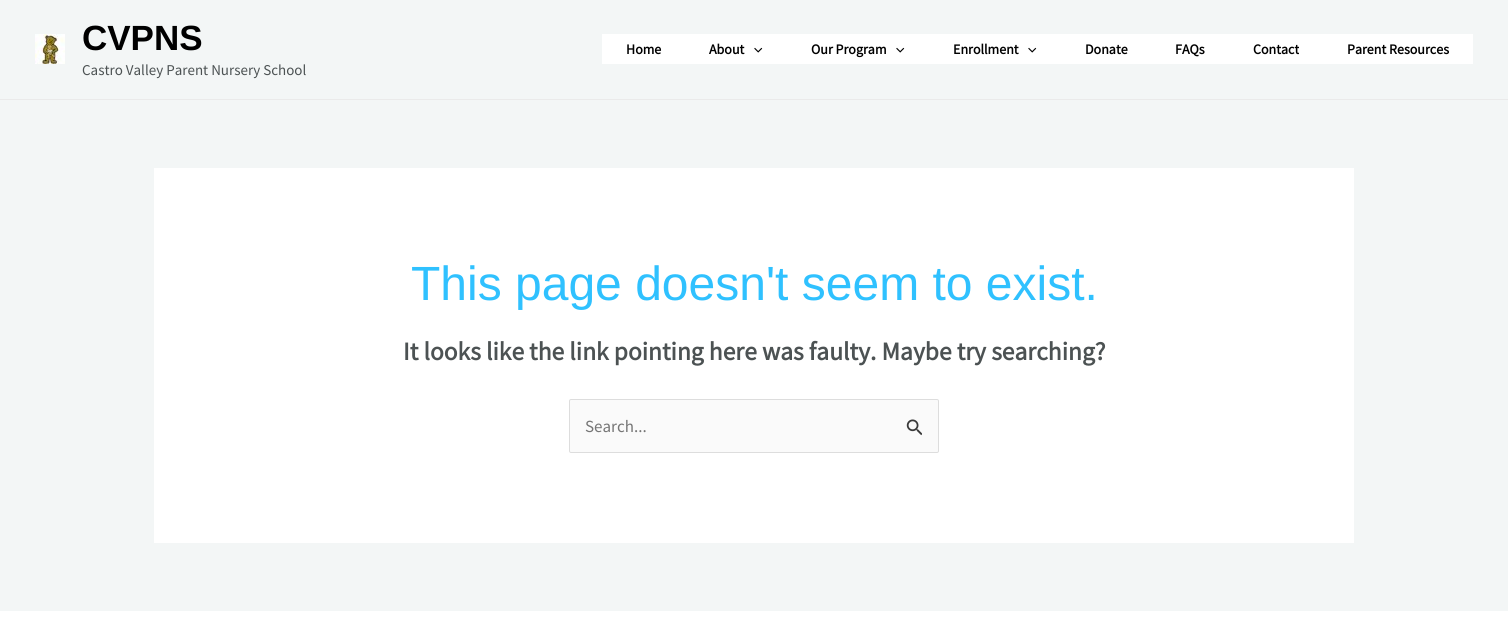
#include <cairo.h>
#include <math.h>
#include <stddef.h>


static void rgb(cairo_t *cr, int r, int g, int b)
{
	cairo_set_source_rgb(cr, r / 255.0, g / 255.0, b / 255.0);
}

static void face(cairo_t *cr, const char *family, double size, int italic, int bold)
{
	cairo_select_font_face(cr, family, italic ? CAIRO_FONT_SLANT_ITALIC : CAIRO_FONT_SLANT_NORMAL,
		bold ? CAIRO_FONT_WEIGHT_BOLD : CAIRO_FONT_WEIGHT_NORMAL);
	cairo_set_font_size(cr, size);
}

static void label(cairo_t *cr, double x, double y, const char *s)
{
	cairo_move_to(cr, x, y);
	cairo_show_text(cr, s);
}

static void rect(cairo_t *cr, double x, double y, double w, double h)
{
	cairo_rectangle(cr, x, y, w, h);
	cairo_fill(cr);
}

static void rrect(cairo_t *cr, double x, double y, double w, double h, double r)
{
	cairo_new_sub_path(cr);
	cairo_arc(cr, x + w - r, y + h - r, r, 0, M_PI / 2);
	cairo_arc(cr, x + r, y + h - r, r, M_PI / 2, M_PI);
	cairo_arc(cr, x + r, y + r, r, M_PI, 1.5 * M_PI);
	cairo_arc(cr, x + w - r, y + r, r, 1.5 * M_PI, 2 * M_PI);
	cairo_close_path(cr);
}

static void image(cairo_t *cr, const char *path, double x, double y, double w, double h)
{
	cairo_surface_t *image = cairo_image_surface_create_from_png(path);
	cairo_save(cr);
	cairo_set_source_surface(cr, image, x, y);
	cairo_rectangle(cr, x, y, w, h);
	cairo_fill(cr);
	cairo_restore(cr);
	cairo_surface_destroy(image);
}

static void draw(cairo_t *cr) {
	rgb(cr, 243, 246, 246);
	cairo_paint(cr);
	rgb(cr, 234, 234, 234);
	rect(cr, 0, 99, 1508, 1);
	image(cr, "image0.png", 35, 34, 30, 30);
	face(cr, "Liberation Sans", 35, 0, 1);
	rgb(cr, 0, 0, 0);
	label(cr, 82, 50, "CVPNS");
	face(cr, "Source Sans Pro", 15, 0, 0);
	rgb(cr, 76, 82, 83);
	label(cr, 82, 75, "Castro Valley Parent Nursery School");
	rgb(cr, 255, 255, 255);
	rect(cr, 602, 34, 871, 30);
	face(cr, "Source Sans Pro", 14, 0, 1);
	rgb(cr, 0, 0, 0);
	label(cr, 626, 54, "Home");
	label(cr, 709, 54, "About");
	image(cr, "image1.png", 754, 47, 9, 6);
	label(cr, 811, 54, "Our Program");
	image(cr, "image1.png", 896, 47, 9, 6);
	label(cr, 953, 54, "Enrollment");
	image(cr, "image1.png", 1028, 47, 9, 6);
	label(cr, 1085, 54, "Donate");
	label(cr, 1175, 54, "FAQs");
	label(cr, 1253, 54, "Contact");
	label(cr, 1347, 54, "Parent Resources");
	rgb(cr, 255, 255, 255);
	rect(cr, 154, 168, 1200, 375);
	face(cr, "Liberation Sans", 48, 0, 0);
	rgb(cr, 47, 193, 255);
	label(cr, 411, 300, "This page doesn't seem to exist.");
	face(cr, "Source Sans Pro", 25.5, 0, 1);
	rgb(cr, 76, 82, 83);
	label(cr, 403, 360, "It looks like the link pointing here was faulty. Maybe try searching?");
	rgb(cr, 250, 250, 250);
	rrect(cr, 569.5, 399.5, 369, 53, 1.5);
	cairo_fill_preserve(cr);
	rgb(cr, 221, 221, 221);
	cairo_set_line_width(cr, 1);
	cairo_stroke(cr);
	face(cr, "Source Sans Pro", 17, 0, 0);
	rgb(cr, 117, 117, 117);
	label(cr, 585, 432, "Search...");
	image(cr, "image2.png", 906, 419, 16, 17);
	rgb(cr, 255, 255, 255);
	rect(cr, 0, 611, 1508, 32);
}

int main(void) {
	cairo_surface_t *surface = cairo_image_surface_create(CAIRO_FORMAT_RGB24, 1508, 643);
	cairo_t *cr = cairo_create(surface);
	cairo_font_options_t *options = cairo_font_options_create();
	cairo_font_options_set_hint_metrics(options, CAIRO_HINT_METRICS_OFF);
	cairo_font_options_set_hint_style(options, CAIRO_HINT_STYLE_NONE);
	cairo_set_font_options(cr, options);
	cairo_set_miter_limit(cr, 4);
	draw(cr);
	cairo_surface_write_to_png(surface, "render.png");
	cairo_font_options_destroy(options);
	cairo_destroy(cr);
	cairo_surface_destroy(surface);
	return 0;
}
